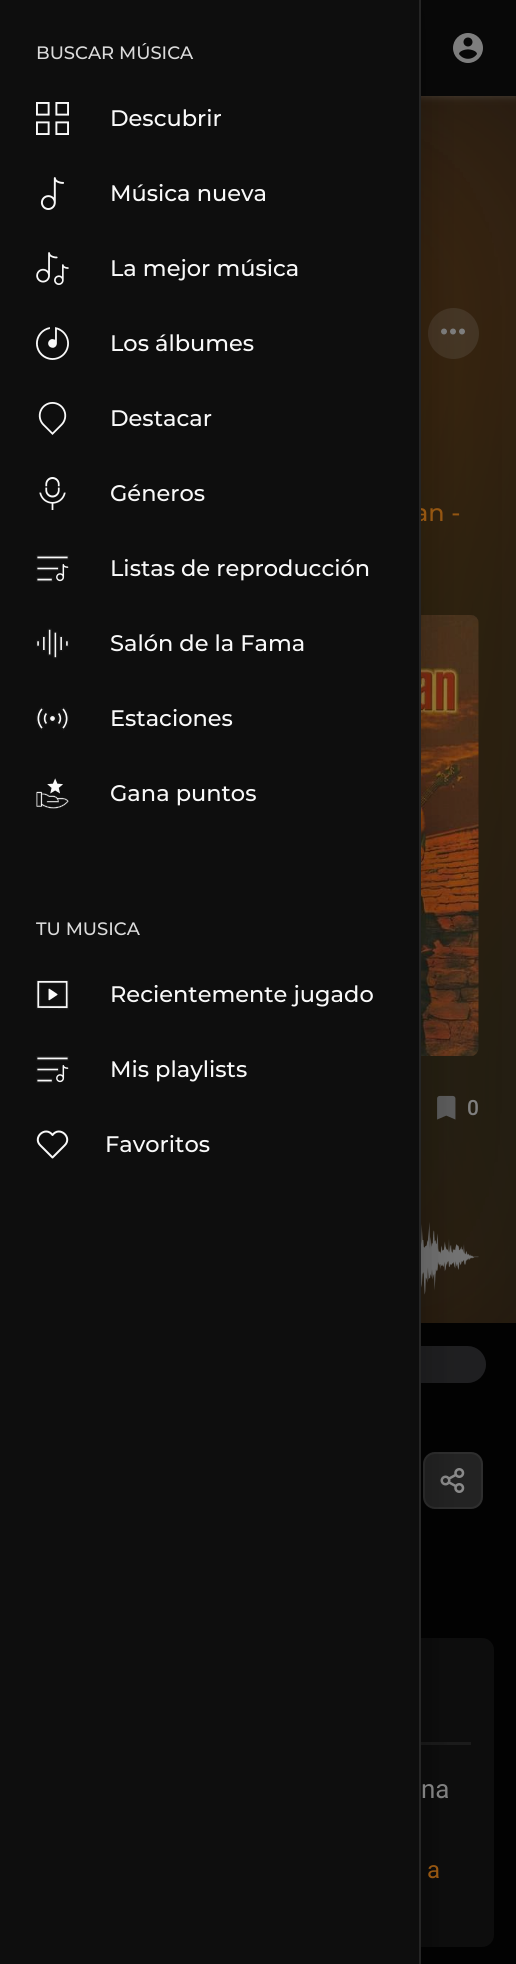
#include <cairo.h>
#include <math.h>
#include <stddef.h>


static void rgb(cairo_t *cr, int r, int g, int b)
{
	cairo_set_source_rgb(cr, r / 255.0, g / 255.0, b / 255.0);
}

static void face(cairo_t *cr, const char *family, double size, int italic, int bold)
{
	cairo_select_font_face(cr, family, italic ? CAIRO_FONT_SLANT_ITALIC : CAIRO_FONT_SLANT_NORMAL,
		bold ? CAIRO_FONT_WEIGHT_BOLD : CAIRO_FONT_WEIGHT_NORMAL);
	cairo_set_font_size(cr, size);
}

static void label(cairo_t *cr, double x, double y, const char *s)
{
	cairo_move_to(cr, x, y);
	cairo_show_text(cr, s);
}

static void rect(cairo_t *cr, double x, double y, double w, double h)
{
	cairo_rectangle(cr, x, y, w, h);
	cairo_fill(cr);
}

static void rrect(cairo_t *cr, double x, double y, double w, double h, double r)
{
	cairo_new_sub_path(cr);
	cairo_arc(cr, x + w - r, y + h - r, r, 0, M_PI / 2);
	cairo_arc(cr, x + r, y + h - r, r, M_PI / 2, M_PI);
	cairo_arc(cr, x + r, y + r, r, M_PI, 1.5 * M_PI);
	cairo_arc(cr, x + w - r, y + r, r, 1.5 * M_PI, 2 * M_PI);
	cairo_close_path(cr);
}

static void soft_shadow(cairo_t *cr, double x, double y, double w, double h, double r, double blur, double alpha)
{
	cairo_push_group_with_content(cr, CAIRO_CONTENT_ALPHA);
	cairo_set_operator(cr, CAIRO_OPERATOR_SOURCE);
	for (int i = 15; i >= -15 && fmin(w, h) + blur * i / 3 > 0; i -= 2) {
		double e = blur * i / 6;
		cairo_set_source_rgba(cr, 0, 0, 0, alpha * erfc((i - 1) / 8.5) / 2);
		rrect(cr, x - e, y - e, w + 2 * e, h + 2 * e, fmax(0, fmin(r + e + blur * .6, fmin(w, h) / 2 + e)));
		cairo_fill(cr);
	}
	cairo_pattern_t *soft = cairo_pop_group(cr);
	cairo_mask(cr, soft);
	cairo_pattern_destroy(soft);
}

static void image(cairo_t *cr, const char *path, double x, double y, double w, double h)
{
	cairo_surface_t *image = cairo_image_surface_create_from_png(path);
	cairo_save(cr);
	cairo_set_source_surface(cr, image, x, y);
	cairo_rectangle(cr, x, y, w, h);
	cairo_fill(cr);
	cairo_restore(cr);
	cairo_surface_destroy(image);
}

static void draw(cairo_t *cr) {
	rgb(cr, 2, 2, 2);
	cairo_paint(cr);
	rgb(cr, 13, 13, 13);
	rect(cr, 421, 96, 95, 1227);
	image(cr, "image12.png", 421, 96, 95, 1227);
	rgb(cr, 153, 153, 153);
	soft_shadow(cr, 0, 2, 516, 96, 0, 3, 0.2);
	rgb(cr, 8, 8, 8);
	rect(cr, 421, 0, 95, 96);
	image(cr, "image0.png", 453, 33, 30, 30);
	cairo_set_source_rgba(cr, 0.6, 0.6, 0.6, 0.15);
	cairo_arc(cr, 453.5, 333.5, 25.5, 0, 2 * M_PI);
	cairo_fill(cr);
	image(cr, "image13.png", 441, 328, 24, 7);
	image(cr, "image14.png", 421, 615, 58, 441);
	image(cr, "image15.png", 437, 1095, 19, 25);
	image(cr, "image16.png", 421, 1222, 58, 73);
	rrect(cr, 34, 1350, 448, 29, 14.5);
	rgb(cr, 31, 31, 33);
	cairo_set_line_width(cr, 8);
	cairo_stroke(cr);
	rrect(cr, 38, 1353, 441, 23, 11.5);
	cairo_fill(cr);
	rgb(cr, 35, 35, 35);
	rrect(cr, 424, 1453, 58, 55, 11);
	cairo_fill_preserve(cr);
	rgb(cr, 46, 46, 46);
	cairo_set_line_width(cr, 2);
	cairo_stroke(cr);
	image(cr, "image17.png", 440, 1468, 25, 25);
	rgb(cr, 13, 13, 13);
	rrect(cr, 23, 1638, 471, 309, 12);
	cairo_fill(cr);
	rgb(cr, 27, 27, 27);
	rect(cr, 421, 1742, 50, 3);
	rgb(cr, 0, 0, 0);
	soft_shadow(cr, -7, 2, 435, 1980, 0, 22.5, 0.12);
	soft_shadow(cr, -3, 21, 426, 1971, 0, 18, 0.14);
	face(cr, "Montserrat Medium", 24, 0, 0);
	rgb(cr, 149, 86, 17);
	label(cr, 414, 521, "an -");
	rgb(cr, 14, 14, 14);
	rect(cr, 0, 0, 419, 1964);
	rgb(cr, 37, 37, 37);
	rect(cr, 419, 0, 2, 1964);
	face(cr, "Montserrat Medium", 18, 0, 0);
	rgb(cr, 219, 219, 219);
	label(cr, 36, 59, "BUSCAR MÚSICA");
	image(cr, "image1.png", 36, 102, 33, 33);
	face(cr, "Montserrat Medium", 22.5, 0, 0);
	rgb(cr, 249, 249, 249);
	label(cr, 110, 126, "Descubrir");
	image(cr, "image2.png", 40, 177, 24, 33);
	label(cr, 110, 201, "Música nueva");
	image(cr, "image3.png", 36, 252, 33, 33);
	label(cr, 110, 276, "La mejor música");
	image(cr, "image4.png", 36, 327, 33, 33);
	label(cr, 110, 351, "Los álbumes");
	image(cr, "image5.png", 38, 402, 29, 33);
	label(cr, 110, 426, "Destacar");
	image(cr, "image6.png", 39, 477, 27, 33);
	label(cr, 110, 501, "Géneros");
	image(cr, "image7.png", 36, 555, 33, 27);
	label(cr, 110, 576, "Listas de reproducción");
	image(cr, "image8.png", 36, 628, 33, 31);
	label(cr, 110, 651, "Salón de la Fama");
	image(cr, "image9.png", 36, 707, 33, 24);
	label(cr, 110, 726, "Estaciones");
	image(cr, "image10.png", 36, 778, 33, 31);
	label(cr, 110, 801, "Gana puntos");
	face(cr, "Montserrat Medium", 18, 0, 0);
	rgb(cr, 219, 219, 219);
	label(cr, 36, 935, "TU MUSICA");
	image(cr, "image11.png", 36, 980, 33, 30);
	face(cr, "Montserrat Medium", 22.5, 0, 0);
	rgb(cr, 249, 249, 249);
	label(cr, 110, 1002, "Recientemente jugado");
	image(cr, "image7.png", 36, 1056, 33, 27);
	label(cr, 110, 1077, "Mis playlists");
	cairo_new_path(cr);
	cairo_move_to(cr, 64.5, 1145.5);
	cairo_line_to(cr, 52.5, 1157.5);
	cairo_line_to(cr, 40.5, 1145.5);
	cairo_move_to(cr, 40.5, 1145.5);
	cairo_curve_to(cr, 32, 1137.5, 45.5, 1125.5, 52.5, 1135);
	cairo_curve_to(cr, 59.5, 1125.5, 73, 1137.5, 64.5, 1145.5);
	cairo_set_line_cap(cr, CAIRO_LINE_CAP_ROUND);
	cairo_set_line_join(cr, CAIRO_LINE_JOIN_ROUND);
	cairo_stroke(cr);
	label(cr, 105, 1152, "Favoritos");
	face(cr, "Roboto Medium", 21, 0, 0);
	rgb(cr, 127, 127, 127);
	label(cr, 467, 1115, "0");
	face(cr, "Roboto", 26, 0, 0);
	label(cr, 421, 1798, "na");
	face(cr, "Roboto", 24, 0, 0);
	rgb(cr, 149, 86, 17);
	label(cr, 427, 1878, "a");
}

int main(void) {
	cairo_surface_t *surface = cairo_image_surface_create(CAIRO_FORMAT_RGB24, 516, 1964);
	cairo_t *cr = cairo_create(surface);
	cairo_font_options_t *options = cairo_font_options_create();
	cairo_font_options_set_hint_metrics(options, CAIRO_HINT_METRICS_OFF);
	cairo_font_options_set_hint_style(options, CAIRO_HINT_STYLE_NONE);
	cairo_set_font_options(cr, options);
	cairo_set_miter_limit(cr, 4);
	draw(cr);
	cairo_surface_write_to_png(surface, "render.png");
	cairo_font_options_destroy(options);
	cairo_destroy(cr);
	cairo_surface_destroy(surface);
	return 0;
}
